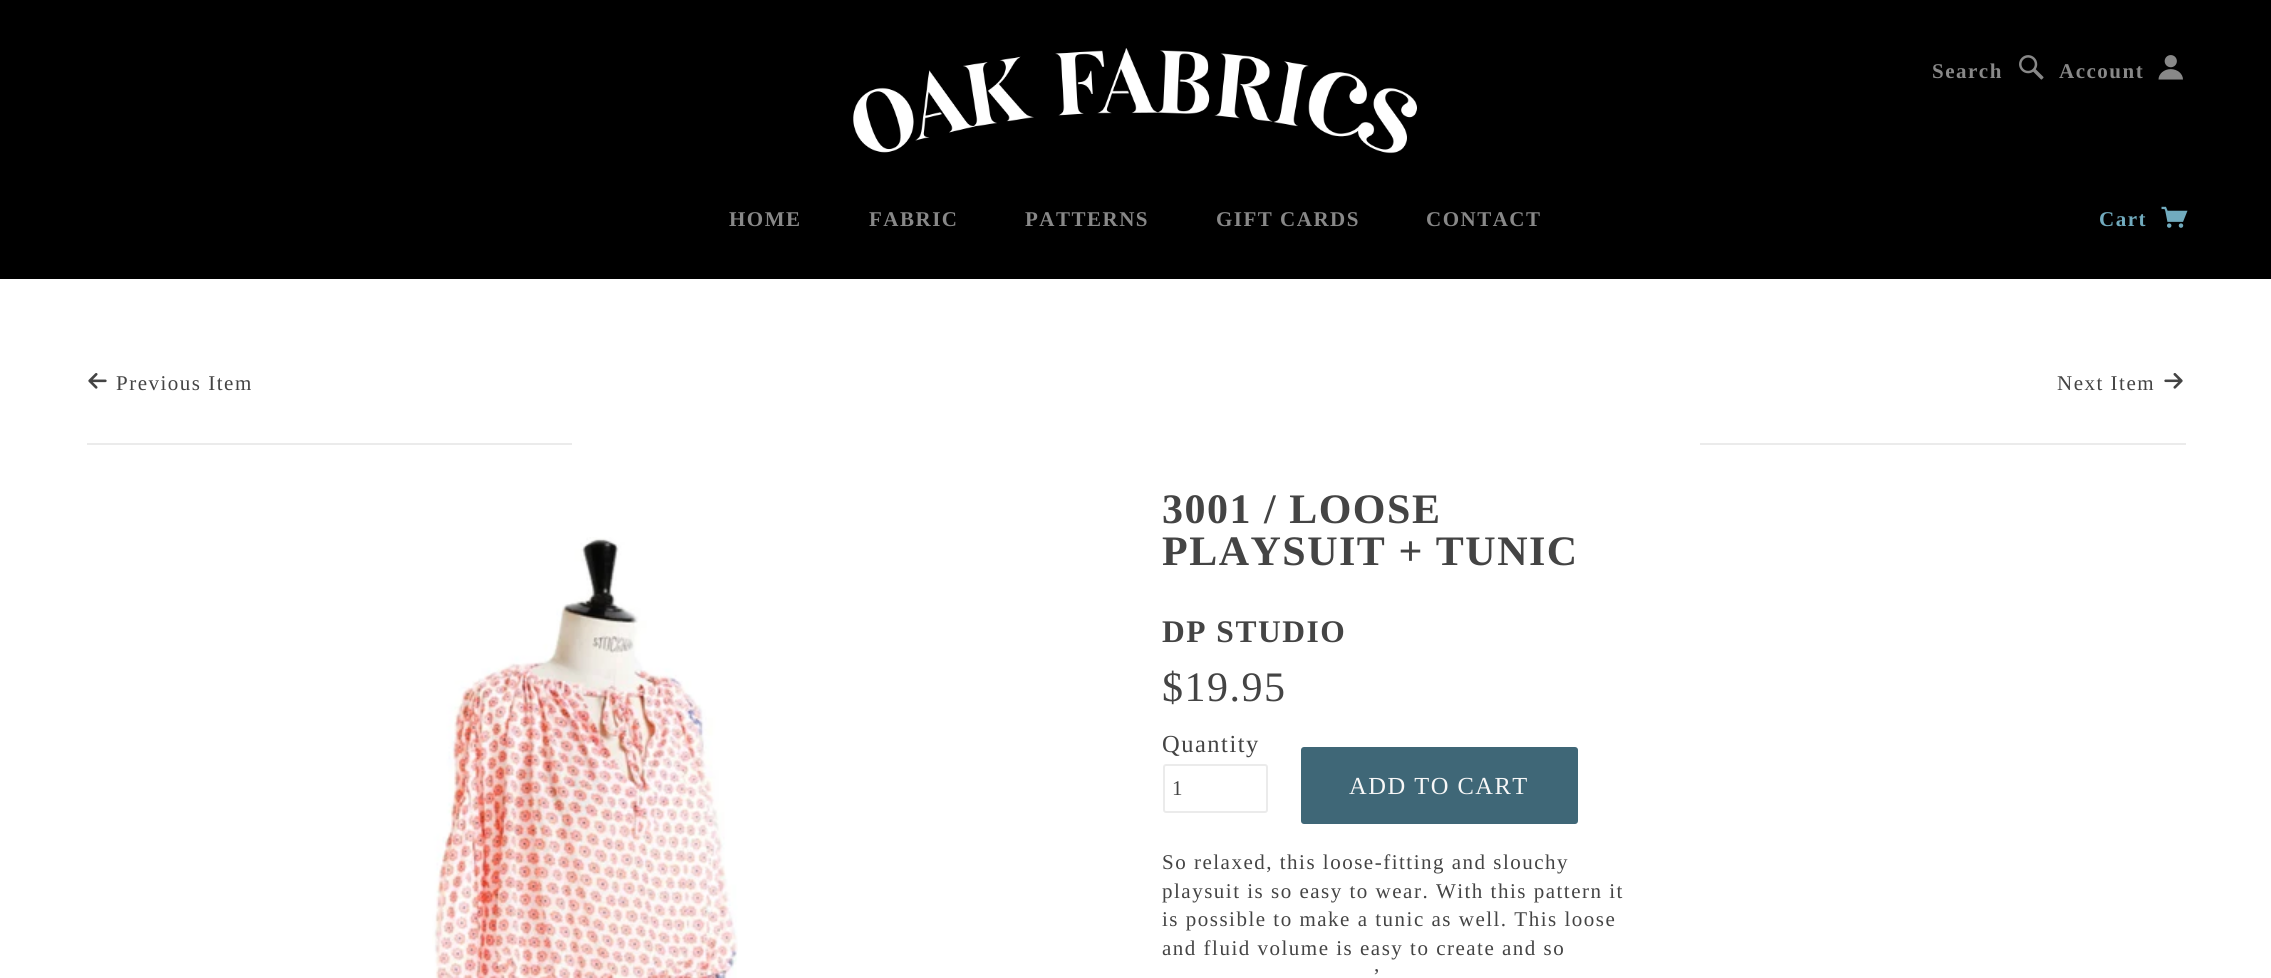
#include <cairo.h>
#include <math.h>
#include <stddef.h>


static void rgb(cairo_t *cr, int r, int g, int b)
{
	cairo_set_source_rgb(cr, r / 255.0, g / 255.0, b / 255.0);
}

static void face(cairo_t *cr, const char *family, double size, int italic, int bold)
{
	cairo_select_font_face(cr, family, italic ? CAIRO_FONT_SLANT_ITALIC : CAIRO_FONT_SLANT_NORMAL,
		bold ? CAIRO_FONT_WEIGHT_BOLD : CAIRO_FONT_WEIGHT_NORMAL);
	cairo_set_font_size(cr, size);
}

static void tracked(cairo_t *cr, double x, double y, const char *s, double letter, double word)
{
	cairo_move_to(cr, x, y);
	while (*s) {
		char ch[5] = {0};
		int n = 0;
		do ch[n++] = *s++; while ((*s & 0xC0) == 0x80);
		cairo_show_text(cr, ch);
		cairo_rel_move_to(cr, letter + word * (*ch == ' '), 0);
	}
}

static void rect(cairo_t *cr, double x, double y, double w, double h)
{
	cairo_rectangle(cr, x, y, w, h);
	cairo_fill(cr);
}

static void rrect(cairo_t *cr, double x, double y, double w, double h, double r)
{
	cairo_new_sub_path(cr);
	cairo_arc(cr, x + w - r, y + h - r, r, 0, M_PI / 2);
	cairo_arc(cr, x + r, y + h - r, r, M_PI / 2, M_PI);
	cairo_arc(cr, x + r, y + r, r, M_PI, 1.5 * M_PI);
	cairo_arc(cr, x + w - r, y + r, r, 1.5 * M_PI, 2 * M_PI);
	cairo_close_path(cr);
}

static void image(cairo_t *cr, const char *path, double x, double y, double w, double h)
{
	cairo_surface_t *image = cairo_image_surface_create_from_png(path);
	cairo_save(cr);
	cairo_set_source_surface(cr, image, x, y);
	cairo_rectangle(cr, x, y, w, h);
	cairo_fill(cr);
	cairo_restore(cr);
	cairo_surface_destroy(image);
}

static void draw(cairo_t *cr) {
	rgb(cr, 255, 255, 255);
	cairo_paint(cr);
	rgb(cr, 0, 0, 0);
	rect(cr, 0, 0, 2271, 279);
	image(cr, "image0.png", 853, 48, 564, 106);
	face(cr, "Liberation Serif", 21, 0, 1);
	rgb(cr, 136, 136, 136);
	tracked(cr, 1932, 78, "Search", 1.5, 0);
	image(cr, "image1.png", 2019, 55, 25, 25);
	tracked(cr, 2059, 78, "Account", 1.5, 0);
	image(cr, "image2.png", 2158, 55, 25, 25);
	tracked(cr, 729, 226, "HOME", 1.5, 0);
	tracked(cr, 869, 226, "FABRIC", 1.5, 0);
	tracked(cr, 1025, 226, "PATTERNS", 1.5, 0);
	tracked(cr, 1216, 226, "GIFT CARDS", 1.5, 0);
	tracked(cr, 1426, 226, "CONTACT", 1.5, 0);
	rgb(cr, 113, 171, 190);
	tracked(cr, 2099, 226, "Cart", 1.5, 0);
	image(cr, "image3.png", 2161, 206, 27, 22);
	image(cr, "image4.png", 88, 373, 19, 16);
	face(cr, "Liberation Serif", 21, 0, 0);
	rgb(cr, 68, 68, 68);
	tracked(cr, 116, 390, "Previous Item", 1.5, 0);
	rgb(cr, 235, 235, 235);
	rect(cr, 87, 443, 485, 2);
	rgb(cr, 68, 68, 68);
	tracked(cr, 2057, 390, "Next Item", 1.5, 0);
	image(cr, "image5.png", 2164, 373, 19, 16);
	rgb(cr, 235, 235, 235);
	rect(cr, 1700, 443, 486, 2);
	image(cr, "image6.png", 432, 537, 306, 441);
	face(cr, "Liberation Serif", 42, 0, 1);
	rgb(cr, 68, 68, 68);
	tracked(cr, 1162, 523, "3001 / LOOSE", 1.5, 0);
	tracked(cr, 1162, 565, "PLAYSUIT + TUNIC", 1.5, 0);
	face(cr, "Liberation Serif", 31.5, 0, 1);
	tracked(cr, 1162, 642, "DP STUDIO", 1.5, 0);
	face(cr, "Liberation Serif", 42, 0, 0);
	tracked(cr, 1162, 701, "$19.95", 1.5, 0);
	face(cr, "Liberation Serif", 24.5, 0, 0);
	tracked(cr, 1162, 752, "Quantity", 1.5, 0);
	rrect(cr, 1164, 765, 103, 47, 2);
	rgb(cr, 235, 235, 235);
	cairo_stroke(cr);
	face(cr, "Liberation Serif", 21, 0, 0);
	rgb(cr, 68, 68, 68);
	tracked(cr, 1172, 795, "1", 1, 0);
	rgb(cr, 63, 103, 119);
	rrect(cr, 1301, 747, 277, 77, 3);
	cairo_fill(cr);
	face(cr, "Liberation Serif", 24.5, 0, 0);
	rgb(cr, 247, 247, 247);
	tracked(cr, 1349, 794, "ADD TO CART", 1.5, 0);
	face(cr, "Liberation Serif", 21, 0, 0);
	rgb(cr, 68, 68, 68);
	tracked(cr, 1162, 869, "So relaxed, this loose-fitting and slouchy", 1.5, 0);
	tracked(cr, 1162, 898, "playsuit is so easy to wear. With this pattern it", 1.5, 0);
	tracked(cr, 1162, 926, "is possible to make a tunic as well. This loose", 1.5, 0);
	tracked(cr, 1162, 955, "and fluid volume is easy to create and so", 1.5, 0);
	tracked(cr, 1373, 983, "’", 1.5, 0);
}

int main(void) {
	cairo_surface_t *surface = cairo_image_surface_create(CAIRO_FORMAT_RGB24, 2271, 978);
	cairo_t *cr = cairo_create(surface);
	cairo_font_options_t *options = cairo_font_options_create();
	cairo_font_options_set_hint_metrics(options, CAIRO_HINT_METRICS_OFF);
	cairo_font_options_set_hint_style(options, CAIRO_HINT_STYLE_NONE);
	cairo_set_font_options(cr, options);
	cairo_set_miter_limit(cr, 4);
	draw(cr);
	cairo_surface_write_to_png(surface, "render.png");
	cairo_font_options_destroy(options);
	cairo_destroy(cr);
	cairo_surface_destroy(surface);
	return 0;
}
